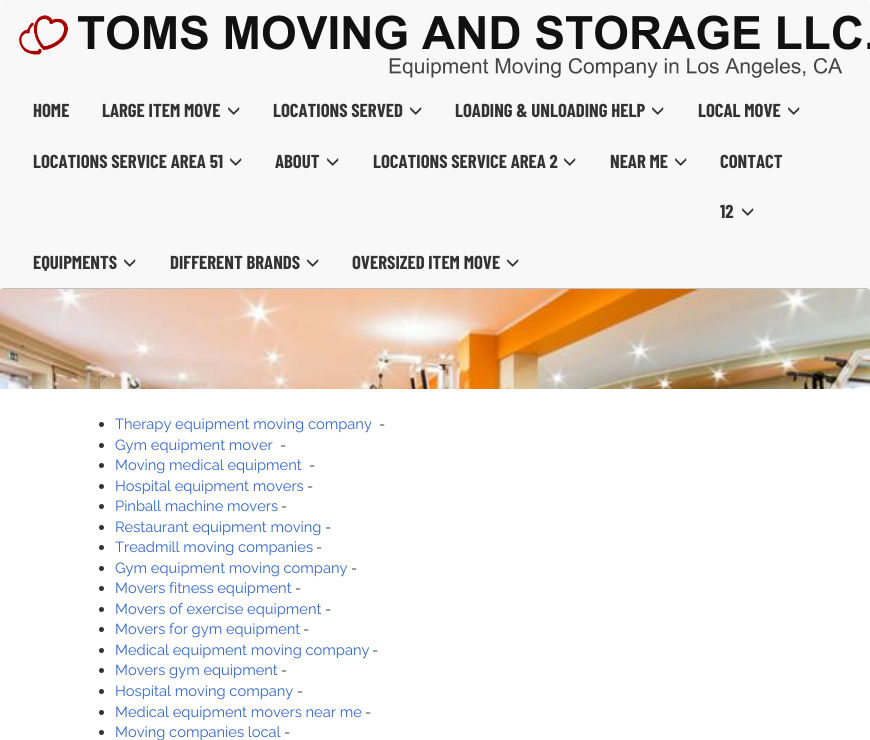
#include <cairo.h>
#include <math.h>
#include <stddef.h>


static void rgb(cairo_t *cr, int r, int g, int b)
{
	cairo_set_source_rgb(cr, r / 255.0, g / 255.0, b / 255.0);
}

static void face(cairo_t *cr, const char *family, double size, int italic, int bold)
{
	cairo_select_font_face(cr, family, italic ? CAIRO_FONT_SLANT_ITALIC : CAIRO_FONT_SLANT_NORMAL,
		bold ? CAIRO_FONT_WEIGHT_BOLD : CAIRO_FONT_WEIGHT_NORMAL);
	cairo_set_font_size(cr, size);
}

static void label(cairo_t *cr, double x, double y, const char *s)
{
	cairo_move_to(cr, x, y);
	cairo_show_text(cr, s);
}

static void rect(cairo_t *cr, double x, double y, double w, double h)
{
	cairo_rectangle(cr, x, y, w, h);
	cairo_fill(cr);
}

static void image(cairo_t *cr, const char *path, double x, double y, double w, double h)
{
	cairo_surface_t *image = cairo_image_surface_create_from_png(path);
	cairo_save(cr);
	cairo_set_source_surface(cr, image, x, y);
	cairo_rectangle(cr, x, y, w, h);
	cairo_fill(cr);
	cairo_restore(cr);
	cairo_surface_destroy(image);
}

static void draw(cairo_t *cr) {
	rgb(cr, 255, 255, 255);
	cairo_paint(cr);
	rgb(cr, 248, 248, 248);
	cairo_new_path(cr);
	cairo_move_to(cr, 4, 0);
	cairo_line_to(cr, 866, 0);
	cairo_curve_to(cr, 868, 0, 870, 2, 870, 4);
	cairo_line_to(cr, 870, 285);
	cairo_curve_to(cr, 870, 287, 868, 288, 866, 288);
	cairo_line_to(cr, 4, 288);
	cairo_curve_to(cr, 2, 288, 0, 287, 0, 285);
	cairo_line_to(cr, 0, 4);
	cairo_curve_to(cr, 0, 2, 2, 0, 4, 0);
	cairo_close_path(cr);
	cairo_fill(cr);
	rgb(cr, 192, 192, 192);
	rect(cr, 2, 288, 866, 1);
	image(cr, "image0.png", 19, 15, 851, 63);
	face(cr, "Barlow Condensed", 18.75, 0, 1);
	rgb(cr, 51, 51, 51);
	label(cr, 33, 117, "HOME");
	label(cr, 102, 117, "LARGE ITEM MOVE");
	image(cr, "image1.png", 228, 107, 12, 8);
	label(cr, 273, 117, "LOCATIONS SERVED");
	image(cr, "image1.png", 410, 107, 12, 8);
	label(cr, 455, 117, "LOADING & UNLOADING HELP");
	image(cr, "image1.png", 652, 107, 12, 8);
	label(cr, 698, 117, "LOCAL MOVE");
	image(cr, "image1.png", 788, 107, 12, 8);
	label(cr, 33, 168, "LOCATIONS SERVICE AREA 51");
	image(cr, "image1.png", 230, 158, 12, 8);
	label(cr, 275, 168, "ABOUT");
	image(cr, "image1.png", 327, 158, 12, 8);
	label(cr, 373, 168, "LOCATIONS SERVICE AREA 2");
	image(cr, "image1.png", 564, 158, 12, 8);
	label(cr, 610, 168, "NEAR ME");
	image(cr, "image1.png", 675, 158, 12, 8);
	label(cr, 720, 168, "CONTACT");
	label(cr, 720, 218, "12");
	image(cr, "image1.png", 742, 208, 12, 8);
	label(cr, 33, 269, "EQUIPMENTS");
	image(cr, "image1.png", 124, 259, 12, 8);
	label(cr, 170, 269, "DIFFERENT BRANDS");
	image(cr, "image1.png", 307, 259, 12, 8);
	label(cr, 352, 269, "OVERSIZED ITEM MOVE");
	image(cr, "image1.png", 507, 259, 12, 8);
	image(cr, "image2.png", 0, 289, 870, 100);
	cairo_arc(cr, 101.5, 424.5, 2.5, 0, 2 * M_PI);
	cairo_fill(cr);
	face(cr, "Raleway", 14.7, 0, 0);
	rgb(cr, 51, 102, 204);
	label(cr, 115, 429, "Therapy equipment moving company");
	rgb(cr, 51, 51, 51);
	label(cr, 379, 429, "-");
	cairo_new_path(cr);
	cairo_arc(cr, 101.5, 445.5, 2.5, 0, 2 * M_PI);
	cairo_fill(cr);
	rgb(cr, 51, 102, 204);
	label(cr, 115, 450, "Gym equipment mover");
	rgb(cr, 51, 51, 51);
	label(cr, 280, 450, "-");
	cairo_new_path(cr);
	cairo_arc(cr, 101.5, 465.5, 2.5, 0, 2 * M_PI);
	cairo_fill(cr);
	rgb(cr, 51, 102, 204);
	label(cr, 115, 470, "Moving medical equipment");
	rgb(cr, 51, 51, 51);
	label(cr, 309, 470, "-");
	cairo_new_path(cr);
	cairo_arc(cr, 101.5, 486.5, 2.5, 0, 2 * M_PI);
	cairo_fill(cr);
	rgb(cr, 51, 102, 204);
	label(cr, 115, 491, "Hospital equipment movers");
	rgb(cr, 51, 51, 51);
	label(cr, 307, 491, "-");
	cairo_new_path(cr);
	cairo_arc(cr, 101.5, 506.5, 2.5, 0, 2 * M_PI);
	cairo_fill(cr);
	rgb(cr, 51, 102, 204);
	label(cr, 115, 511, "Pinball machine movers");
	rgb(cr, 51, 51, 51);
	label(cr, 281, 511, "-");
	cairo_new_path(cr);
	cairo_arc(cr, 101.5, 527.5, 2.5, 0, 2 * M_PI);
	cairo_fill(cr);
	rgb(cr, 51, 102, 204);
	label(cr, 115, 532, "Restaurant equipment moving");
	rgb(cr, 51, 51, 51);
	label(cr, 325, 532, "-");
	cairo_new_path(cr);
	cairo_arc(cr, 101.5, 547.5, 2.5, 0, 2 * M_PI);
	cairo_fill(cr);
	rgb(cr, 51, 102, 204);
	label(cr, 115, 552, "Treadmill moving companies");
	rgb(cr, 51, 51, 51);
	label(cr, 316, 552, "-");
	cairo_new_path(cr);
	cairo_arc(cr, 101.5, 568.5, 2.5, 0, 2 * M_PI);
	cairo_fill(cr);
	rgb(cr, 51, 102, 204);
	label(cr, 115, 573, "Gym equipment moving company");
	rgb(cr, 51, 51, 51);
	label(cr, 351, 573, "-");
	cairo_new_path(cr);
	cairo_arc(cr, 101.5, 588.5, 2.5, 0, 2 * M_PI);
	cairo_fill(cr);
	rgb(cr, 51, 102, 204);
	label(cr, 115, 593, "Movers fitness equipment");
	rgb(cr, 51, 51, 51);
	label(cr, 295, 593, "-");
	cairo_new_path(cr);
	cairo_arc(cr, 101.5, 609.5, 2.5, 0, 2 * M_PI);
	cairo_fill(cr);
	rgb(cr, 51, 102, 204);
	label(cr, 115, 614, "Movers of exercise equipment");
	rgb(cr, 51, 51, 51);
	label(cr, 325, 614, "-");
	cairo_new_path(cr);
	cairo_arc(cr, 101.5, 629.5, 2.5, 0, 2 * M_PI);
	cairo_fill(cr);
	rgb(cr, 51, 102, 204);
	label(cr, 115, 634, "Movers for gym equipment");
	rgb(cr, 51, 51, 51);
	label(cr, 303, 634, "-");
	cairo_new_path(cr);
	cairo_arc(cr, 101.5, 650.5, 2.5, 0, 2 * M_PI);
	cairo_fill(cr);
	rgb(cr, 51, 102, 204);
	label(cr, 115, 655, "Medical equipment moving company");
	rgb(cr, 51, 51, 51);
	label(cr, 372, 655, "-");
	cairo_new_path(cr);
	cairo_arc(cr, 101.5, 670.5, 2.5, 0, 2 * M_PI);
	cairo_fill(cr);
	rgb(cr, 51, 102, 204);
	label(cr, 115, 675, "Movers gym equipment");
	rgb(cr, 51, 51, 51);
	label(cr, 281, 675, "-");
	cairo_new_path(cr);
	cairo_arc(cr, 101.5, 691.5, 2.5, 0, 2 * M_PI);
	cairo_fill(cr);
	rgb(cr, 51, 102, 204);
	label(cr, 115, 696, "Hospital moving company");
	rgb(cr, 51, 51, 51);
	label(cr, 297, 696, "-");
	cairo_new_path(cr);
	cairo_arc(cr, 101.5, 712.5, 2.5, 0, 2 * M_PI);
	cairo_fill(cr);
	rgb(cr, 51, 102, 204);
	label(cr, 115, 717, "Medical equipment movers near me");
	rgb(cr, 51, 51, 51);
	label(cr, 365, 717, "-");
	cairo_new_path(cr);
	cairo_arc(cr, 101.5, 732.5, 2.5, 0, 2 * M_PI);
	cairo_fill(cr);
	rgb(cr, 51, 102, 204);
	label(cr, 115, 737, "Moving companies local");
	rgb(cr, 51, 51, 51);
	label(cr, 284, 737, "-");
}

int main(void) {
	cairo_surface_t *surface = cairo_image_surface_create(CAIRO_FORMAT_RGB24, 870, 740);
	cairo_t *cr = cairo_create(surface);
	cairo_font_options_t *options = cairo_font_options_create();
	cairo_font_options_set_hint_metrics(options, CAIRO_HINT_METRICS_OFF);
	cairo_font_options_set_hint_style(options, CAIRO_HINT_STYLE_NONE);
	cairo_set_font_options(cr, options);
	cairo_set_miter_limit(cr, 4);
	draw(cr);
	cairo_surface_write_to_png(surface, "render.png");
	cairo_font_options_destroy(options);
	cairo_destroy(cr);
	cairo_surface_destroy(surface);
	return 0;
}
